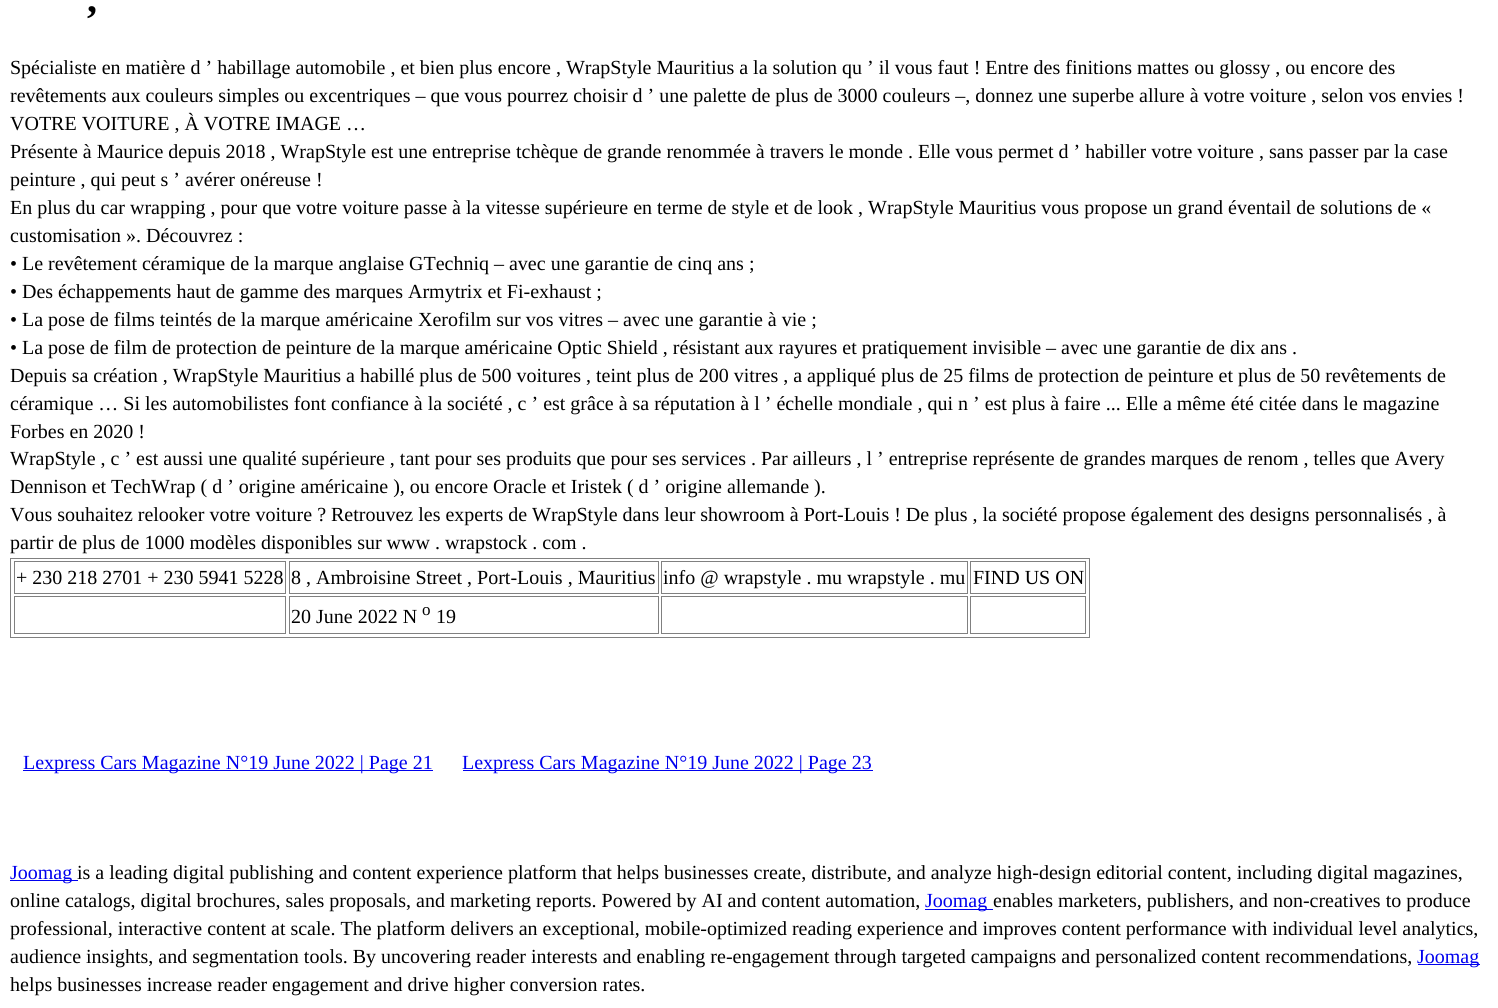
#include <cairo.h>
#include <math.h>
#include <stddef.h>


static void rgb(cairo_t *cr, int r, int g, int b)
{
	cairo_set_source_rgb(cr, r / 255.0, g / 255.0, b / 255.0);
}

static void face(cairo_t *cr, const char *family, double size, int italic, int bold)
{
	cairo_select_font_face(cr, family, italic ? CAIRO_FONT_SLANT_ITALIC : CAIRO_FONT_SLANT_NORMAL,
		bold ? CAIRO_FONT_WEIGHT_BOLD : CAIRO_FONT_WEIGHT_NORMAL);
	cairo_set_font_size(cr, size);
}

static void label(cairo_t *cr, double x, double y, const char *s)
{
	cairo_move_to(cr, x, y);
	cairo_show_text(cr, s);
}

static void rect(cairo_t *cr, double x, double y, double w, double h)
{
	cairo_rectangle(cr, x, y, w, h);
	cairo_fill(cr);
}

static void draw(cairo_t *cr) {
	rgb(cr, 255, 255, 255);
	cairo_paint(cr);
	face(cr, "Liberation Serif", 40, 0, 1);
	rgb(cr, 0, 0, 0);
	label(cr, 87, 12, ",");
	face(cr, "Liberation Serif", 20, 0, 0);
	label(cr, 10, 74, "Spécialiste en matière d ’ habillage automobile , et bien plus encore , WrapStyle Mauritius a la solution qu ’ il vous faut ! Entre des finitions mattes ou glossy , ou encore des");
	label(cr, 10, 102, "revêtements aux couleurs simples ou excentriques – que vous pourrez choisir d ’ une palette de plus de 3000 couleurs –, donnez une superbe allure à votre voiture , selon vos envies !");
	label(cr, 10, 130, "VOTRE VOITURE , À VOTRE IMAGE …");
	label(cr, 10, 158, "Présente à Maurice depuis 2018 , WrapStyle est une entreprise tchèque de grande renommée à travers le monde . Elle vous permet d ’ habiller votre voiture , sans passer par la case");
	label(cr, 10, 186, "peinture , qui peut s ’ avérer onéreuse !");
	label(cr, 10, 214, "En plus du car wrapping , pour que votre voiture passe à la vitesse supérieure en terme de style et de look , WrapStyle Mauritius vous propose un grand éventail de solutions de «");
	label(cr, 10, 242, "customisation ». Découvrez :");
	label(cr, 10, 270, "• Le revêtement céramique de la marque anglaise GTechniq – avec une garantie de cinq ans ;");
	label(cr, 10, 298, "• Des échappements haut de gamme des marques Armytrix et Fi-exhaust ;");
	label(cr, 10, 326, "• La pose de films teintés de la marque américaine Xerofilm sur vos vitres – avec une garantie à vie ;");
	label(cr, 10, 354, "• La pose de film de protection de peinture de la marque américaine Optic Shield , résistant aux rayures et pratiquement invisible – avec une garantie de dix ans .");
	label(cr, 10, 382, "Depuis sa création , WrapStyle Mauritius a habillé plus de 500 voitures , teint plus de 200 vitres , a appliqué plus de 25 films de protection de peinture et plus de 50 revêtements de");
	label(cr, 10, 410, "céramique … Si les automobilistes font confiance à la société , c ’ est grâce à sa réputation à l ’ échelle mondiale , qui n ’ est plus à faire ... Elle a même été citée dans le magazine");
	label(cr, 10, 438, "Forbes en 2020 !");
	label(cr, 10, 465, "WrapStyle , c ’ est aussi une qualité supérieure , tant pour ses produits que pour ses services . Par ailleurs , l ’ entreprise représente de grandes marques de renom , telles que Avery");
	label(cr, 10, 493, "Dennison et TechWrap ( d ’ origine américaine ), ou encore Oracle et Iristek ( d ’ origine allemande ).");
	label(cr, 10, 521, "Vous souhaitez relooker votre voiture ? Retrouvez les experts de WrapStyle dans leur showroom à Port-Louis ! De plus , la société propose également des designs personnalisés , à");
	label(cr, 10, 549, "partir de plus de 1000 modèles disponibles sur www . wrapstock . com .");
	cairo_rectangle(cr, 10.5, 558.5, 1079, 79);
	rgb(cr, 128, 128, 128);
	cairo_set_line_width(cr, 1);
	cairo_stroke(cr);
	cairo_rectangle(cr, 14.5, 561.5, 271, 32);
	cairo_stroke(cr);
	rgb(cr, 0, 0, 0);
	label(cr, 16, 584, "+ 230 218 2701 + 230 5941 5228");
	cairo_rectangle(cr, 289.5, 561.5, 369, 32);
	rgb(cr, 128, 128, 128);
	cairo_stroke(cr);
	rgb(cr, 0, 0, 0);
	label(cr, 291, 584, "8 , Ambroisine Street , Port-Louis , Mauritius");
	cairo_rectangle(cr, 661.5, 561.5, 306, 32);
	rgb(cr, 128, 128, 128);
	cairo_stroke(cr);
	rgb(cr, 0, 0, 0);
	label(cr, 663, 584, "info @ wrapstyle . mu wrapstyle . mu");
	cairo_rectangle(cr, 970.5, 561.5, 115, 32);
	rgb(cr, 128, 128, 128);
	cairo_stroke(cr);
	rgb(cr, 0, 0, 0);
	label(cr, 973, 584, "FIND US ON");
	cairo_rectangle(cr, 14.5, 596.5, 271, 37);
	rgb(cr, 128, 128, 128);
	cairo_stroke(cr);
	cairo_rectangle(cr, 289.5, 596.5, 369, 37);
	cairo_stroke(cr);
	rgb(cr, 0, 0, 0);
	label(cr, 291, 623, "20 June 2022 N");
	face(cr, "Liberation Serif", 17, 0, 0);
	label(cr, 422, 615, "o");
	face(cr, "Liberation Serif", 20, 0, 0);
	label(cr, 436, 623, "19");
	cairo_rectangle(cr, 661.5, 596.5, 306, 37);
	rgb(cr, 128, 128, 128);
	cairo_stroke(cr);
	cairo_rectangle(cr, 970.5, 596.5, 115, 37);
	cairo_stroke(cr);
	rgb(cr, 0, 0, 238);
	rect(cr, 23, 770, 410, 1);
	label(cr, 23, 769, "Lexpress Cars Magazine N°19 June 2022 | Page 21");
	rect(cr, 463, 770, 410, 1);
	label(cr, 462, 769, "Lexpress Cars Magazine N°19 June 2022 | Page 23");
	rect(cr, 10, 880, 68, 1);
	label(cr, 10, 879, "Joomag");
	rgb(cr, 0, 0, 0);
	label(cr, 77, 879, "is a leading digital publishing and content experience platform that helps businesses create, distribute, and analyze high-design editorial content, including digital magazines,");
	label(cr, 10, 907, "online catalogs, digital brochures, sales proposals, and marketing reports. Powered by AI and content automation,");
	rgb(cr, 0, 0, 238);
	rect(cr, 925, 909, 68, 1);
	label(cr, 925, 907, "Joomag");
	rgb(cr, 0, 0, 0);
	label(cr, 993, 907, "enables marketers, publishers, and non-creatives to produce");
	label(cr, 10, 935, "professional, interactive content at scale. The platform delivers an exceptional, mobile-optimized reading experience and improves content performance with individual level analytics,");
	label(cr, 10, 963, "audience insights, and segmentation tools. By uncovering reader interests and enabling re-engagement through targeted campaigns and personalized content recommendations,");
	rgb(cr, 0, 0, 238);
	rect(cr, 1418, 964, 62, 1);
	label(cr, 1417, 963, "Joomag");
	rgb(cr, 0, 0, 0);
	label(cr, 10, 991, "helps businesses increase reader engagement and drive higher conversion rates.");
}

int main(void) {
	cairo_surface_t *surface = cairo_image_surface_create(CAIRO_FORMAT_RGB24, 1498, 1008);
	cairo_t *cr = cairo_create(surface);
	cairo_font_options_t *options = cairo_font_options_create();
	cairo_font_options_set_hint_metrics(options, CAIRO_HINT_METRICS_OFF);
	cairo_font_options_set_hint_style(options, CAIRO_HINT_STYLE_NONE);
	cairo_set_font_options(cr, options);
	cairo_set_miter_limit(cr, 4);
	draw(cr);
	cairo_surface_write_to_png(surface, "render.png");
	cairo_font_options_destroy(options);
	cairo_destroy(cr);
	cairo_surface_destroy(surface);
	return 0;
}
